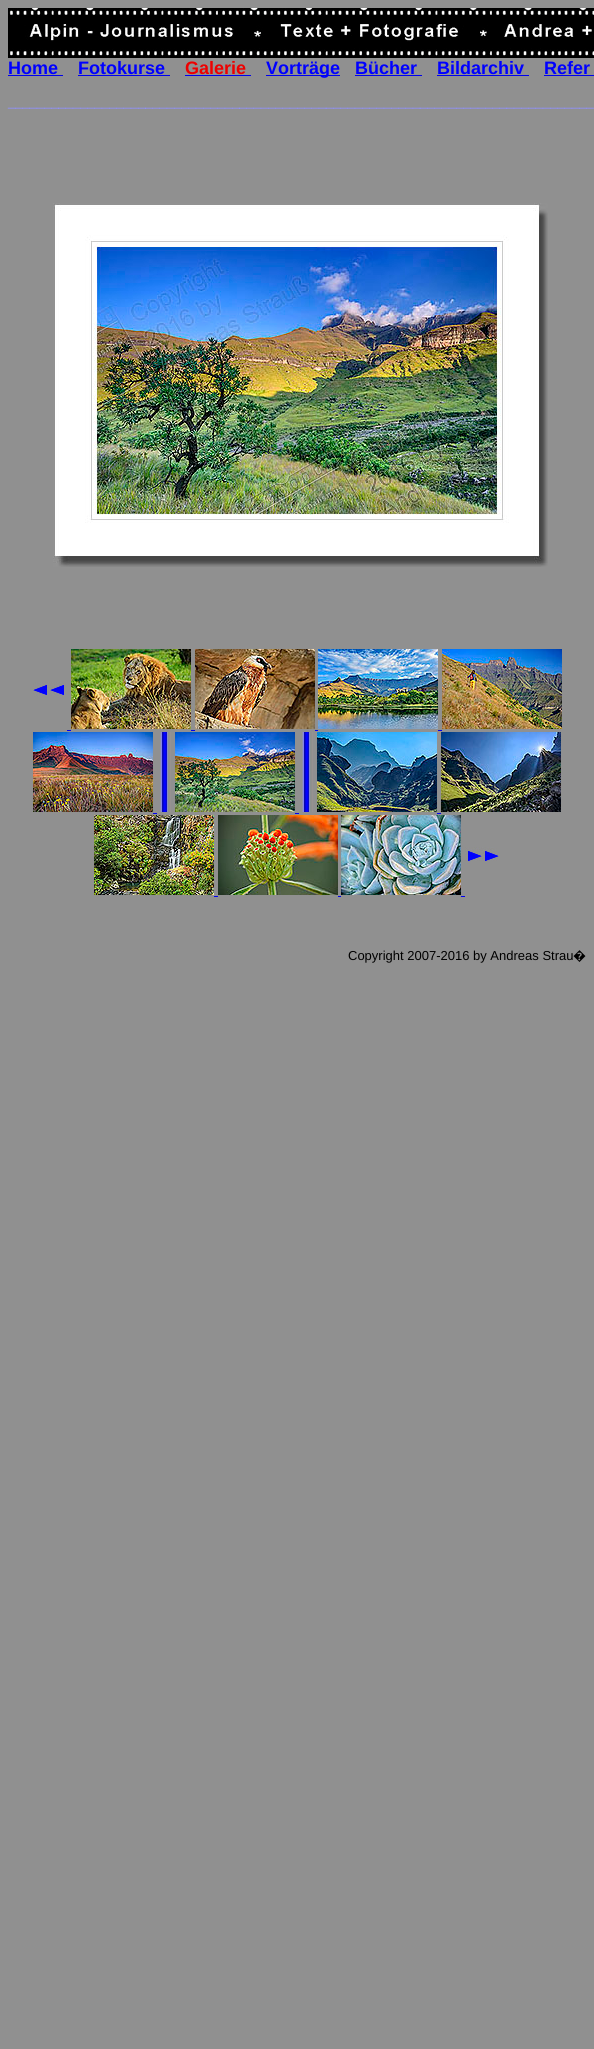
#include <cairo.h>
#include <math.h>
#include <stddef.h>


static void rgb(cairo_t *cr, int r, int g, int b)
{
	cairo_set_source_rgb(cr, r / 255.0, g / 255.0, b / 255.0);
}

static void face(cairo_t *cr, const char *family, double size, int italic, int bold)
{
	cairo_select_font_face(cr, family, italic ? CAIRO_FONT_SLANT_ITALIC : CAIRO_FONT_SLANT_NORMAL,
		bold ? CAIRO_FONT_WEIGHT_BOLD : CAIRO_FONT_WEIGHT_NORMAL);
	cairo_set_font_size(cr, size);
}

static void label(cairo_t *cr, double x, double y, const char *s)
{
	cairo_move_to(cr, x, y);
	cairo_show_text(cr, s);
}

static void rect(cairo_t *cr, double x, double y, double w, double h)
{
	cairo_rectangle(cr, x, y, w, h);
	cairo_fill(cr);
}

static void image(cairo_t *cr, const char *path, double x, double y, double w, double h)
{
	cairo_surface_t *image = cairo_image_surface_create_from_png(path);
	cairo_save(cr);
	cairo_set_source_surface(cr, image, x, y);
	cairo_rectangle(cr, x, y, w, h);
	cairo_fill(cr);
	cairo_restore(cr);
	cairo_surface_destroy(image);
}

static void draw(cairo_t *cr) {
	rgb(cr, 144, 144, 144);
	cairo_paint(cr);
	image(cr, "image0.png", 8, 8, 586, 50);
	face(cr, "Liberation Sans", 18, 0, 1);
	rgb(cr, 0, 0, 255);
	label(cr, 8, 74, "Home");
	rgb(cr, 0, 0, 238);
	rect(cr, 8, 75, 55, 1);
	rgb(cr, 0, 0, 255);
	label(cr, 78, 74, "Fotokurse");
	rgb(cr, 0, 0, 238);
	rect(cr, 78, 75, 92, 1);
	rgb(cr, 238, 0, 0);
	label(cr, 185, 74, "Galerie");
	rgb(cr, 0, 0, 238);
	rect(cr, 185, 75, 66, 1);
	rect(cr, 266, 75, 74, 1);
	rgb(cr, 0, 0, 255);
	label(cr, 266, 74, "Vorträge");
	label(cr, 355, 74, "Bücher");
	rgb(cr, 0, 0, 238);
	rect(cr, 355, 75, 67, 1);
	rgb(cr, 0, 0, 255);
	label(cr, 437, 74, "Bildarchiv");
	rgb(cr, 0, 0, 238);
	rect(cr, 437, 75, 92, 1);
	rgb(cr, 0, 0, 255);
	label(cr, 544, 74, "Refer");
	rgb(cr, 0, 0, 238);
	rect(cr, 544, 75, 50, 1);
	face(cr, "Liberation Sans", 13, 0, 0);
	rgb(cr, 144, 144, 255);
	label(cr, 8, 106, "_________________________________________________________________________________");
	image(cr, "image1.png", 53, 203, 495, 364);
	image(cr, "image2.png", 33, 682, 31, 15);
	image(cr, "image3.png", 71, 649, 120, 80);
	image(cr, "image4.png", 195, 649, 120, 80);
	image(cr, "image5.png", 318, 649, 120, 80);
	image(cr, "image6.png", 442, 649, 120, 80);
	rgb(cr, 0, 0, 238);
	rect(cr, 67, 730, 4, 1);
	rect(cr, 191, 730, 4, 1);
	rect(cr, 315, 730, 3, 1);
	rect(cr, 438, 730, 4, 1);
	image(cr, "image7.png", 33, 732, 120, 80);
	image(cr, "image8.png", 160, 732, 11, 80);
	image(cr, "image9.png", 175, 732, 120, 80);
	image(cr, "image8.png", 302, 732, 11, 80);
	image(cr, "image10.png", 317, 732, 120, 80);
	image(cr, "image11.png", 441, 732, 120, 80);
	rect(cr, 153, 813, 4, 1);
	rect(cr, 295, 813, 4, 1);
	rect(cr, 437, 813, 4, 1);
	image(cr, "image12.png", 94, 815, 120, 80);
	image(cr, "image13.png", 218, 815, 120, 80);
	image(cr, "image14.png", 341, 815, 120, 80);
	image(cr, "image15.png", 465, 847, 34, 14);
	rect(cr, 214, 896, 4, 1);
	rect(cr, 338, 896, 3, 1);
	rect(cr, 461, 896, 4, 1);
	rgb(cr, 0, 0, 0);
	label(cr, 348, 960, "Copyright 2007-2016 by Andreas Strau");
	face(cr, "Noto Sans", 13, 0, 0);
	label(cr, 573, 960, "�");
}

int main(void) {
	cairo_surface_t *surface = cairo_image_surface_create(CAIRO_FORMAT_RGB24, 594, 2049);
	cairo_t *cr = cairo_create(surface);
	cairo_font_options_t *options = cairo_font_options_create();
	cairo_font_options_set_hint_metrics(options, CAIRO_HINT_METRICS_OFF);
	cairo_font_options_set_hint_style(options, CAIRO_HINT_STYLE_NONE);
	cairo_set_font_options(cr, options);
	cairo_set_miter_limit(cr, 4);
	draw(cr);
	cairo_surface_write_to_png(surface, "render.png");
	cairo_font_options_destroy(options);
	cairo_destroy(cr);
	cairo_surface_destroy(surface);
	return 0;
}
